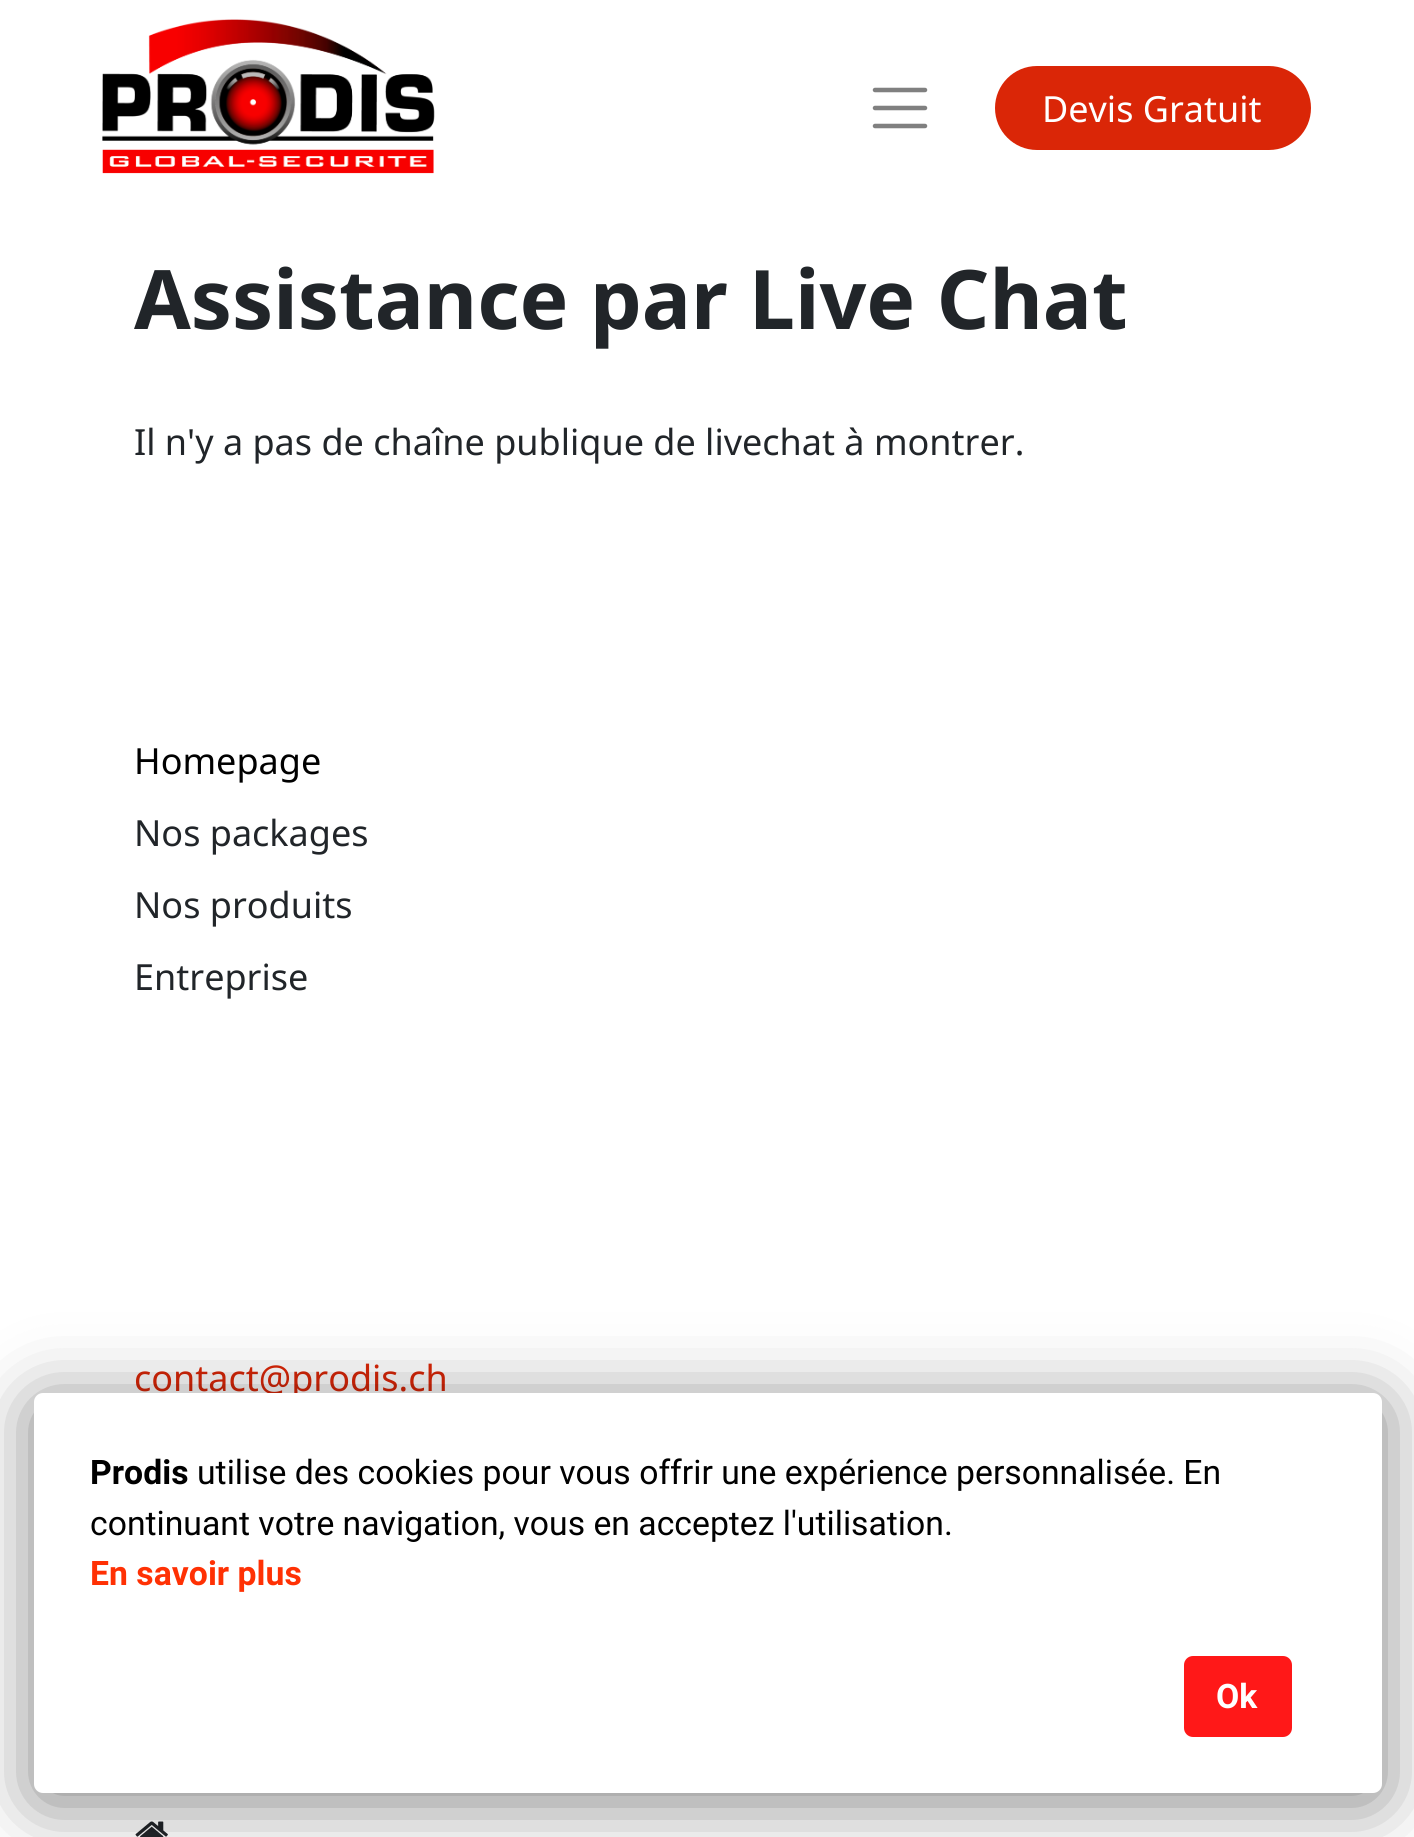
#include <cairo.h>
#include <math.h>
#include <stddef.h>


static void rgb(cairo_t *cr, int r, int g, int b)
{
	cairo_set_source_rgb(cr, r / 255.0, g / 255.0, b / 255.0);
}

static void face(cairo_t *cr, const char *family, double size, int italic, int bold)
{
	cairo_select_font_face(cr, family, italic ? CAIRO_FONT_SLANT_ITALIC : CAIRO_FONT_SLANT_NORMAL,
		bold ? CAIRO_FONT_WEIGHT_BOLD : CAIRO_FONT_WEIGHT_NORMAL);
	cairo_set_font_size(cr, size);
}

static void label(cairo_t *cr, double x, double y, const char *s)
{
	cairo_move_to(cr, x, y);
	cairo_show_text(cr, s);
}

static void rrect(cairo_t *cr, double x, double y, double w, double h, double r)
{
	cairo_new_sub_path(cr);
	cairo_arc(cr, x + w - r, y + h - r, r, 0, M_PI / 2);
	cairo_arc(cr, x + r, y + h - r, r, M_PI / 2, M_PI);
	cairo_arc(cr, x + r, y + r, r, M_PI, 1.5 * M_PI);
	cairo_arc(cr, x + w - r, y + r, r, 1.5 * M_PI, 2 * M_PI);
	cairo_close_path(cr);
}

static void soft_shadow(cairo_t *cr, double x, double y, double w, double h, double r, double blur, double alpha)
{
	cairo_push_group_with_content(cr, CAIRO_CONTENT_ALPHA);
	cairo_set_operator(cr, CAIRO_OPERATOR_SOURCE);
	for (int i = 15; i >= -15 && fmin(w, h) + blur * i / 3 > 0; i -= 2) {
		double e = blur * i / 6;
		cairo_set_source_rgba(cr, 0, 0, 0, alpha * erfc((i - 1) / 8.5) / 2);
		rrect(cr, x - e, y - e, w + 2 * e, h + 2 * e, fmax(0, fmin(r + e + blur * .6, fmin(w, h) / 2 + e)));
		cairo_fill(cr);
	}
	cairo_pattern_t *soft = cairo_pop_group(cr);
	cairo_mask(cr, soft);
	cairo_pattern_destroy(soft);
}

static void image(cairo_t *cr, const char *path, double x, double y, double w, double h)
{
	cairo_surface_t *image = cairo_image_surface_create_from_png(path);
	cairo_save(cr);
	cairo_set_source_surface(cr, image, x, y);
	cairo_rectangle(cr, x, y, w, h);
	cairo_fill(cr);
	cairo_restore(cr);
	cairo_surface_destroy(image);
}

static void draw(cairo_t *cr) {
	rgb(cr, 255, 255, 255);
	cairo_paint(cr);
	image(cr, "image0.png", 102, 19, 333, 155);
	cairo_new_path(cr);
	cairo_move_to(cr, 875, 90);
	cairo_line_to(cr, 925, 90);
	cairo_move_to(cr, 875, 108);
	cairo_line_to(cr, 925, 108);
	cairo_move_to(cr, 875, 126);
	cairo_line_to(cr, 925, 126);
	rgb(cr, 128, 128, 128);
	cairo_set_line_width(cr, 4.5);
	cairo_set_line_cap(cr, CAIRO_LINE_CAP_ROUND);
	cairo_stroke(cr);
	rgb(cr, 218, 38, 7);
	rrect(cr, 992.5, 63.5, 321, 89, 44.5);
	cairo_fill_preserve(cr);
	rgb(cr, 255, 255, 255);
	cairo_set_line_width(cr, 5);
	cairo_set_line_cap(cr, CAIRO_LINE_CAP_BUTT);
	cairo_stroke(cr);
	face(cr, "Noto Sans", 36, 0, 0);
	label(cr, 1042, 122, "Devis Gratuit");
	face(cr, "Noto Sans", 82.1, 0, 1);
	rgb(cr, 33, 37, 41);
	label(cr, 134, 329, "Assistance par Live Chat");
	face(cr, "Noto Sans", 36, 0, 0);
	label(cr, 134, 455, "Il n'y a pas de chaîne publique de livechat à montrer.");
	rgb(cr, 0, 0, 0);
	label(cr, 134, 774, "Homepage");
	rgb(cr, 33, 37, 41);
	label(cr, 134, 846, "Nos packages");
	label(cr, 134, 918, "Nos produits");
	label(cr, 134, 990, "Entreprise");
	rgb(cr, 218, 38, 7);
	label(cr, 134, 1391, "contact@prodis.ch");
	image(cr, "image1.png", 135, 1821, 33, 16);
	rgb(cr, 0, 0, 0);
	soft_shadow(cr, 34, 1402, 1348, 400, 9, 36, 0.5);
	rgb(cr, 255, 255, 255);
	rrect(cr, 34, 1393, 1348, 400, 9);
	cairo_fill(cr);
	face(cr, "Roboto", 33.75, 0, 1);
	rgb(cr, 0, 0, 0);
	label(cr, 90, 1484, "Prodis");
	face(cr, "Roboto", 33.75, 0, 0);
	label(cr, 197, 1484, "utilise des cookies pour vous offrir une expérience personnalisée. En");
	label(cr, 90, 1535, "continuant votre navigation, vous en acceptez l'utilisation.");
	face(cr, "Roboto", 33.75, 0, 1);
	rgb(cr, 255, 49, 4);
	label(cr, 90, 1585, "En savoir plus");
	rgb(cr, 255, 24, 24);
	rrect(cr, 1184, 1656, 108, 81, 9);
	cairo_fill(cr);
	rgb(cr, 255, 255, 255);
	label(cr, 1216, 1708, "Ok");
}

int main(void) {
	cairo_surface_t *surface = cairo_image_surface_create(CAIRO_FORMAT_RGB24, 1414, 1837);
	cairo_t *cr = cairo_create(surface);
	cairo_font_options_t *options = cairo_font_options_create();
	cairo_font_options_set_hint_metrics(options, CAIRO_HINT_METRICS_OFF);
	cairo_font_options_set_hint_style(options, CAIRO_HINT_STYLE_NONE);
	cairo_set_font_options(cr, options);
	cairo_set_miter_limit(cr, 4);
	draw(cr);
	cairo_surface_write_to_png(surface, "render.png");
	cairo_font_options_destroy(options);
	cairo_destroy(cr);
	cairo_surface_destroy(surface);
	return 0;
}
